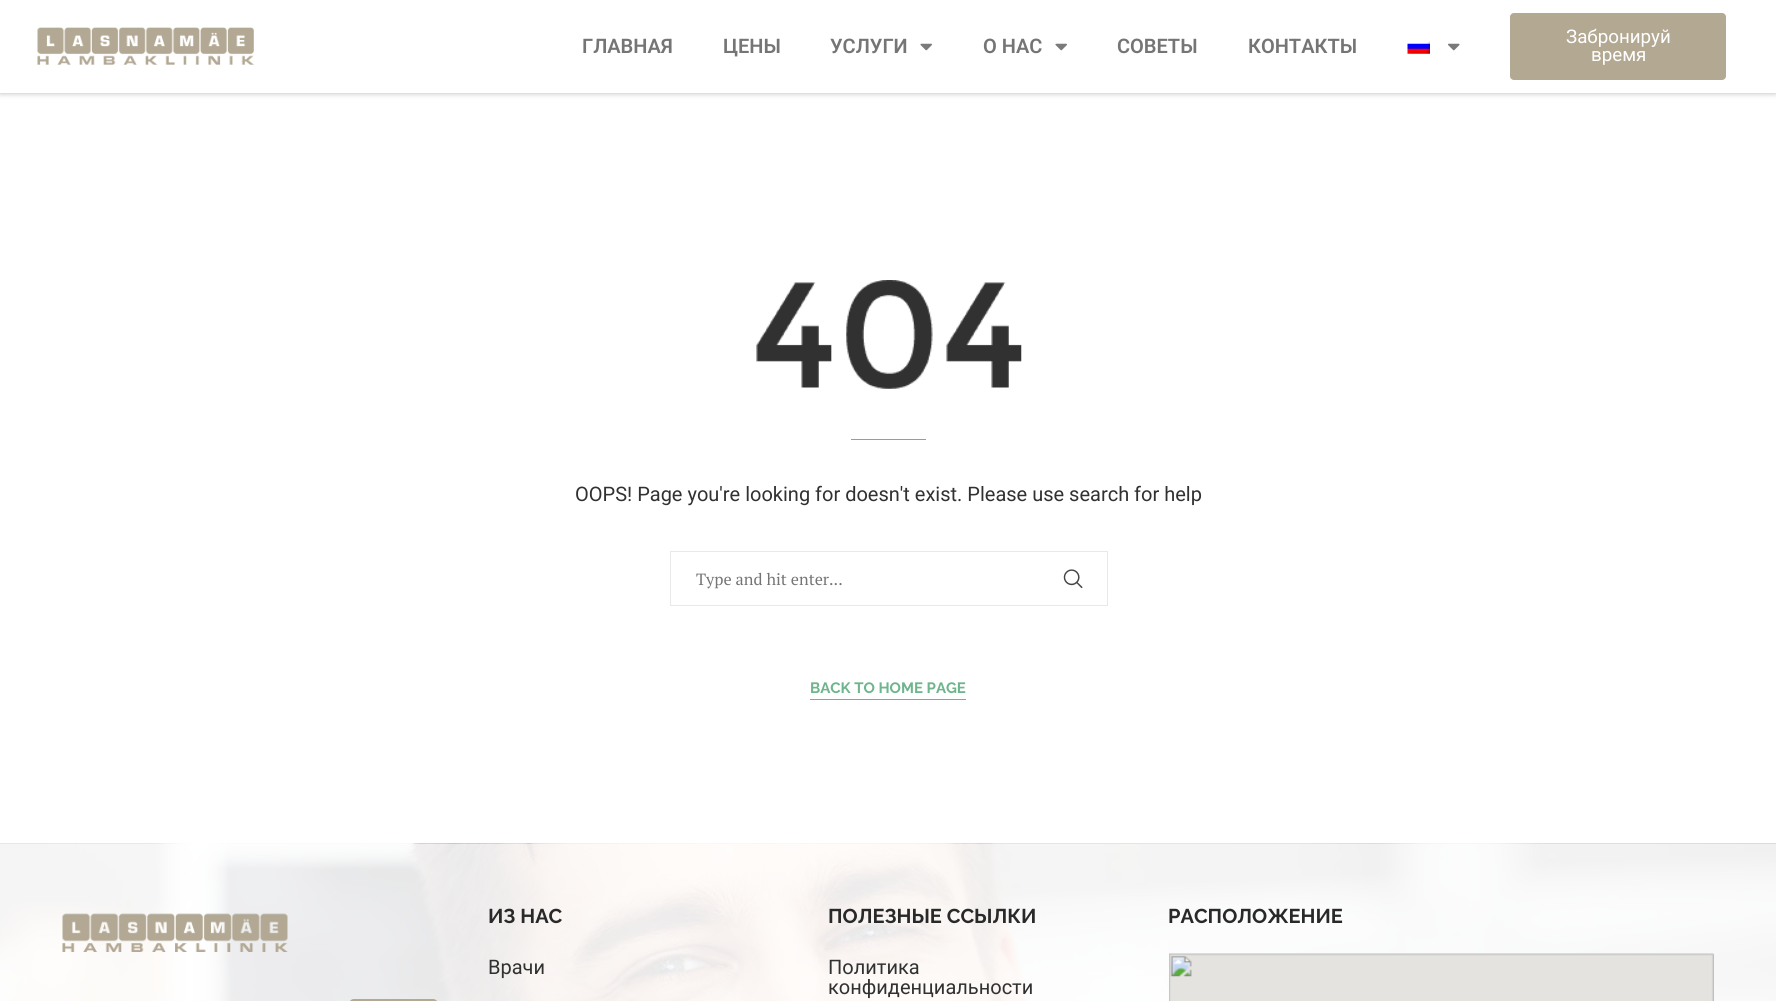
#include <cairo.h>
#include <math.h>
#include <stddef.h>


static void rgb(cairo_t *cr, int r, int g, int b)
{
	cairo_set_source_rgb(cr, r / 255.0, g / 255.0, b / 255.0);
}

static void face(cairo_t *cr, const char *family, double size, int italic, int bold)
{
	cairo_select_font_face(cr, family, italic ? CAIRO_FONT_SLANT_ITALIC : CAIRO_FONT_SLANT_NORMAL,
		bold ? CAIRO_FONT_WEIGHT_BOLD : CAIRO_FONT_WEIGHT_NORMAL);
	cairo_set_font_size(cr, size);
}

static void label(cairo_t *cr, double x, double y, const char *s)
{
	cairo_move_to(cr, x, y);
	cairo_show_text(cr, s);
}

static void rect(cairo_t *cr, double x, double y, double w, double h)
{
	cairo_rectangle(cr, x, y, w, h);
	cairo_fill(cr);
}

static void rrect(cairo_t *cr, double x, double y, double w, double h, double r)
{
	cairo_new_sub_path(cr);
	cairo_arc(cr, x + w - r, y + h - r, r, 0, M_PI / 2);
	cairo_arc(cr, x + r, y + h - r, r, M_PI / 2, M_PI);
	cairo_arc(cr, x + r, y + r, r, M_PI, 1.5 * M_PI);
	cairo_arc(cr, x + w - r, y + r, r, 1.5 * M_PI, 2 * M_PI);
	cairo_close_path(cr);
}

static void soft_shadow(cairo_t *cr, double x, double y, double w, double h, double r, double blur, double alpha)
{
	cairo_push_group_with_content(cr, CAIRO_CONTENT_ALPHA);
	cairo_set_operator(cr, CAIRO_OPERATOR_SOURCE);
	for (int i = 15; i >= -15 && fmin(w, h) + blur * i / 3 > 0; i -= 2) {
		double e = blur * i / 6;
		cairo_set_source_rgba(cr, 0, 0, 0, alpha * erfc((i - 1) / 8.5) / 2);
		rrect(cr, x - e, y - e, w + 2 * e, h + 2 * e, fmax(0, fmin(r + e + blur * .6, fmin(w, h) / 2 + e)));
		cairo_fill(cr);
	}
	cairo_pattern_t *soft = cairo_pop_group(cr);
	cairo_mask(cr, soft);
	cairo_pattern_destroy(soft);
}

static void image(cairo_t *cr, const char *path, double x, double y, double w, double h)
{
	cairo_surface_t *image = cairo_image_surface_create_from_png(path);
	cairo_save(cr);
	cairo_set_source_surface(cr, image, x, y);
	cairo_rectangle(cr, x, y, w, h);
	cairo_fill(cr);
	cairo_restore(cr);
	cairo_surface_destroy(image);
}

static void draw(cairo_t *cr) {
	rgb(cr, 255, 255, 255);
	cairo_paint(cr);
	rgb(cr, 0, 0, 0);
	soft_shadow(cr, 0, 0, 1776, 93, 0, 3, 0.29);
	rgb(cr, 255, 255, 255);
	rect(cr, 0, 0, 1776, 93);
	image(cr, "image0.png", 37, 27, 217, 38);
	face(cr, "Roboto SemiBold", 20, 0, 0);
	rgb(cr, 117, 117, 117);
	label(cr, 582, 53, "ГЛАВНАЯ");
	label(cr, 723, 53, "ЦЕНЫ");
	label(cr, 830, 53, "УСЛУГИ");
	image(cr, "image1.png", 920, 43, 12, 8);
	label(cr, 983, 53, "О НАС");
	image(cr, "image1.png", 1055, 43, 12, 8);
	label(cr, 1117, 53, "СОВЕТЫ");
	label(cr, 1248, 53, "КОНТАКТЫ");
	image(cr, "image2.png", 1407, 41, 23, 13);
	image(cr, "image3.png", 1448, 43, 12, 8);
	rgb(cr, 179, 168, 146);
	rrect(cr, 1510, 13, 216, 67, 4);
	cairo_fill(cr);
	face(cr, "Roboto", 18.75, 0, 0);
	rgb(cr, 255, 255, 255);
	label(cr, 1566, 43, "Забронируй");
	label(cr, 1591, 61, "время");
	image(cr, "image4.png", 756, 280, 266, 109);
	rgb(cr, 110, 180, 140);
	rect(cr, 851, 439, 75, 1);
	face(cr, "Roboto", 20, 0, 0);
	rgb(cr, 49, 49, 49);
	label(cr, 575, 501, "OOPS! Page you're looking for doesn't exist. Please use search for help");
	cairo_rectangle(cr, 670.5, 551.5, 437, 54);
	rgb(cr, 233, 233, 233);
	cairo_set_line_width(cr, 1);
	cairo_stroke(cr);
	face(cr, "PT Serif", 16.25, 0, 0);
	rgb(cr, 117, 117, 117);
	label(cr, 696, 585, "Type and hit enter...");
	image(cr, "image5.png", 1063, 569, 20, 20);
	face(cr, "Raleway", 15, 0, 1);
	rgb(cr, 110, 180, 140);
	label(cr, 810, 693, "BACK TO HOME PAGE");
	rect(cr, 810, 699, 156, 1);
	image(cr, "image6.png", 0, 843, 1776, 158);
	image(cr, "image7.png", 62, 913, 226, 39);
	rgb(cr, 179, 168, 146);
	rrect(cr, 349, 999, 89, 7, 5);
	cairo_fill(cr);
	face(cr, "Raleway", 20, 0, 1);
	rgb(cr, 41, 41, 41);
	label(cr, 488, 923, "ИЗ НАС");
	face(cr, "Roboto", 20, 0, 0);
	rgb(cr, 49, 49, 49);
	label(cr, 488, 974, "Врачи");
	face(cr, "Raleway", 20, 0, 1);
	rgb(cr, 41, 41, 41);
	label(cr, 828, 923, "ПОЛЕЗНЫЕ ССЫЛКИ");
	face(cr, "Roboto", 20, 0, 0);
	rgb(cr, 49, 49, 49);
	label(cr, 828, 974, "Политика");
	label(cr, 828, 994, "конфиденциальности");
	face(cr, "Raleway", 20, 0, 1);
	rgb(cr, 41, 41, 41);
	label(cr, 1168, 923, "РАСПОЛОЖЕНИЕ");
	image(cr, "image8.png", 1169, 953, 545, 48);
}

int main(void) {
	cairo_surface_t *surface = cairo_image_surface_create(CAIRO_FORMAT_RGB24, 1776, 1001);
	cairo_t *cr = cairo_create(surface);
	cairo_font_options_t *options = cairo_font_options_create();
	cairo_font_options_set_hint_metrics(options, CAIRO_HINT_METRICS_OFF);
	cairo_font_options_set_hint_style(options, CAIRO_HINT_STYLE_NONE);
	cairo_set_font_options(cr, options);
	cairo_set_miter_limit(cr, 4);
	draw(cr);
	cairo_surface_write_to_png(surface, "render.png");
	cairo_font_options_destroy(options);
	cairo_destroy(cr);
	cairo_surface_destroy(surface);
	return 0;
}
